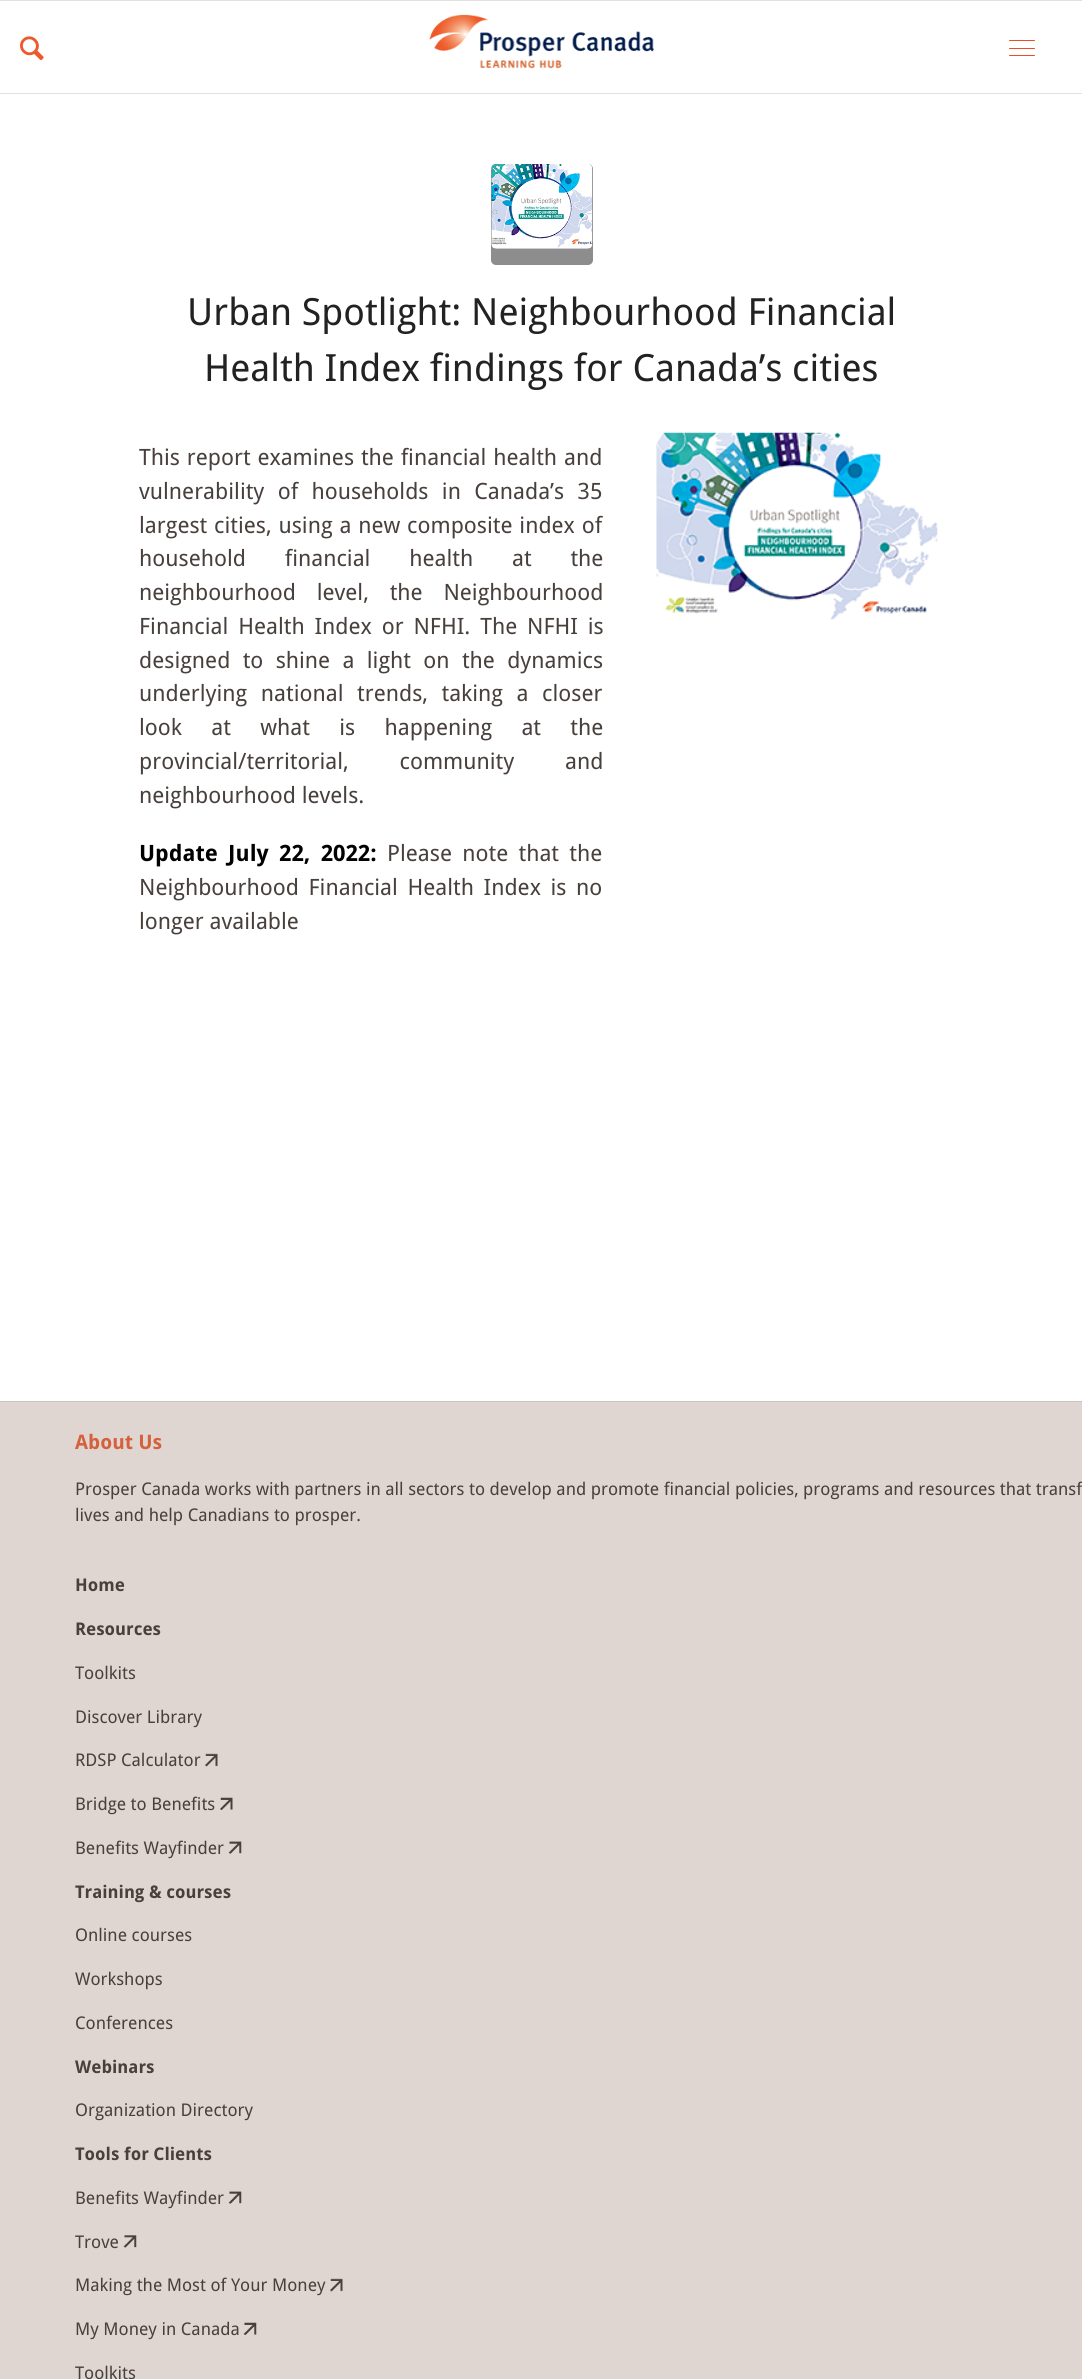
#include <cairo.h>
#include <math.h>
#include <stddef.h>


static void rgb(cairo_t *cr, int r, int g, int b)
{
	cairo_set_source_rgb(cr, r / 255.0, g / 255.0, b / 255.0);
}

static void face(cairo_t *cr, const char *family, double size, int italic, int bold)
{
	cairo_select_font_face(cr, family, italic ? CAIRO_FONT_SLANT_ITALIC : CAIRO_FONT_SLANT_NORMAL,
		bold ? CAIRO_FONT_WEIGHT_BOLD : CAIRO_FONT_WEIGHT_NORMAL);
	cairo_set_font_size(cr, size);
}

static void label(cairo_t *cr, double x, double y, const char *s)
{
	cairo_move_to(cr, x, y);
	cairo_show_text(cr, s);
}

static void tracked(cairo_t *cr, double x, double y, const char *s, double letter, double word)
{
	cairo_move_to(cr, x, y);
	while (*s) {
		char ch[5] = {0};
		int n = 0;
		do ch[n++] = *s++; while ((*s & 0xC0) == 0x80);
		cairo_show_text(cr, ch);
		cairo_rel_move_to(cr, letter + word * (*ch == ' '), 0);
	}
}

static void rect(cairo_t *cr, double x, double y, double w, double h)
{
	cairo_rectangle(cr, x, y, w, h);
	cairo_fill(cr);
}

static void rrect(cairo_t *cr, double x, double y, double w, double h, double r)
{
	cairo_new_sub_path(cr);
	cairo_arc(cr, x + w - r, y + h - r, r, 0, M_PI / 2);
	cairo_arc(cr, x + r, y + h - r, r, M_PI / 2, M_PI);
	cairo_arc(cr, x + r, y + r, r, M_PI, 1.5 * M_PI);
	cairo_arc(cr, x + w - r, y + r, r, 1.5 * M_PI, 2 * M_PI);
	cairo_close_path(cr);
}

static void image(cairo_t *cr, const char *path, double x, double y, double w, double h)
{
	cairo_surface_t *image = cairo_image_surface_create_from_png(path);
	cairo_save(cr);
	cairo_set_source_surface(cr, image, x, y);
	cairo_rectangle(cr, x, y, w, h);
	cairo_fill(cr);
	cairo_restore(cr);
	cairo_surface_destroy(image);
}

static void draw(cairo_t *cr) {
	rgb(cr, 255, 255, 255);
	cairo_paint(cr);
	rgb(cr, 225, 225, 225);
	rect(cr, 0, 0, 1082, 1);
	rect(cr, 0, 93, 1082, 1);
	image(cr, "image0.png", 20, 36, 24, 25);
	image(cr, "image1.png", 429, 14, 225, 55);
	rgb(cr, 235, 76, 37);
	rrect(cr, 1009, 48, 26, 1, 0.5);
	cairo_fill(cr);
	rrect(cr, 1009, 40, 26, 1, 0.5);
	cairo_fill(cr);
	rrect(cr, 1009, 55, 26, 1, 0.5);
	cairo_fill(cr);
	rgb(cr, 141, 141, 141);
	rrect(cr, 491, 164, 102, 101, 5);
	cairo_fill(cr);
	image(cr, "image2.png", 491, 164, 102, 85);
	face(cr, "Droid Sans", 37.5, 0, 0);
	rgb(cr, 34, 34, 34);
	label(cr, 187, 325, "Urban Spotlight: Neighbourhood Financial");
	label(cr, 204, 381, "Health Index findings for Canada’s cities");
	face(cr, "Droid Sans", 22.5, 0, 0);
	rgb(cr, 72, 64, 61);
	tracked(cr, 139, 465, "This report examines the financial health and", 0, 1);
	tracked(cr, 139, 499, "vulnerability of households in Canada’s 35", 0, 7.5);
	tracked(cr, 139, 533, "largest cities, using a new composite index of", 0, 1);
	tracked(cr, 139, 566, "household financial health at the", 0, 33);
	tracked(cr, 139, 600, "neighbourhood level, the Neighbourhood", 0, 15);
	tracked(cr, 139, 634, "Financial Health Index or NFHI. The NFHI is", 0, 4);
	tracked(cr, 139, 668, "designed to shine a light on the dynamics", 0, 6.5);
	tracked(cr, 139, 701, "underlying national trends, taking a closer", 0, 7.75);
	tracked(cr, 139, 735, "look at what is happening at the", 0, 23.5);
	tracked(cr, 139, 769, "provincial/territorial, community and", 0, 45);
	label(cr, 139, 803, "neighbourhood levels.");
	face(cr, "Droid Sans", 22.5, 0, 1);
	rgb(cr, 0, 0, 0);
	tracked(cr, 139, 861, "Update July 22, 2022:", 0, 4.5);
	face(cr, "Droid Sans", 22.5, 0, 0);
	rgb(cr, 72, 64, 61);
	tracked(cr, 387, 861, "Please note that the", 0, 4.5);
	tracked(cr, 139, 895, "Neighbourhood Financial Health Index is no", 0, 3.75);
	label(cr, 139, 929, "longer available");
	image(cr, "image3.png", 656, 432, 282, 188);
	rgb(cr, 223, 214, 209);
	rect(cr, 0, 1402, 1082, 977);
	rgb(cr, 201, 196, 192);
	rect(cr, 0, 1401, 1082, 1);
	face(cr, "Droid Sans", 20, 0, 1);
	rgb(cr, 213, 96, 60);
	label(cr, 75, 1449, "About Us");
	face(cr, "Droid Sans", 17.5, 0, 0);
	rgb(cr, 72, 64, 61);
	label(cr, 75, 1495, "Prosper Canada works with partners in all sectors to develop and promote financial policies, programs and resources that transf");
	label(cr, 75, 1521, "lives and help Canadians to prosper.");
	face(cr, "Droid Sans", 17.5, 0, 1);
	label(cr, 75, 1591, "Home");
	label(cr, 75, 1635, "Resources");
	face(cr, "Droid Sans", 17.5, 0, 0);
	label(cr, 75, 1679, "Toolkits");
	label(cr, 75, 1723, "Discover Library");
	label(cr, 75, 1766, "RDSP Calculator");
	image(cr, "image4.png", 205, 1753, 13, 14);
	label(cr, 75, 1810, "Bridge to Benefits");
	image(cr, "image5.png", 220, 1797, 13, 13);
	label(cr, 75, 1854, "Benefits Wayfinder");
	image(cr, "image6.png", 228, 1841, 14, 13);
	face(cr, "Droid Sans", 17.5, 0, 1);
	label(cr, 75, 1898, "Training & courses");
	face(cr, "Droid Sans", 17.5, 0, 0);
	label(cr, 75, 1941, "Online courses");
	label(cr, 75, 1985, "Workshops");
	label(cr, 75, 2029, "Conferences");
	face(cr, "Droid Sans", 17.5, 0, 1);
	label(cr, 75, 2073, "Webinars");
	face(cr, "Droid Sans", 17.5, 0, 0);
	label(cr, 75, 2116, "Organization Directory");
	face(cr, "Droid Sans", 17.5, 0, 1);
	label(cr, 75, 2160, "Tools for Clients");
	face(cr, "Droid Sans", 17.5, 0, 0);
	label(cr, 75, 2204, "Benefits Wayfinder");
	image(cr, "image6.png", 228, 2191, 14, 13);
	label(cr, 75, 2248, "Trove");
	image(cr, "image7.png", 123, 2235, 14, 13);
	label(cr, 75, 2291, "Making the Most of Your Money");
	image(cr, "image4.png", 330, 2278, 13, 14);
	label(cr, 75, 2335, "My Money in Canada");
	image(cr, "image8.png", 243, 2322, 14, 13);
	label(cr, 75, 2379, "Toolkits");
}

int main(void) {
	cairo_surface_t *surface = cairo_image_surface_create(CAIRO_FORMAT_RGB24, 1082, 2379);
	cairo_t *cr = cairo_create(surface);
	cairo_font_options_t *options = cairo_font_options_create();
	cairo_font_options_set_hint_metrics(options, CAIRO_HINT_METRICS_OFF);
	cairo_font_options_set_hint_style(options, CAIRO_HINT_STYLE_NONE);
	cairo_set_font_options(cr, options);
	cairo_set_miter_limit(cr, 4);
	draw(cr);
	cairo_surface_write_to_png(surface, "render.png");
	cairo_font_options_destroy(options);
	cairo_destroy(cr);
	cairo_surface_destroy(surface);
	return 0;
}
